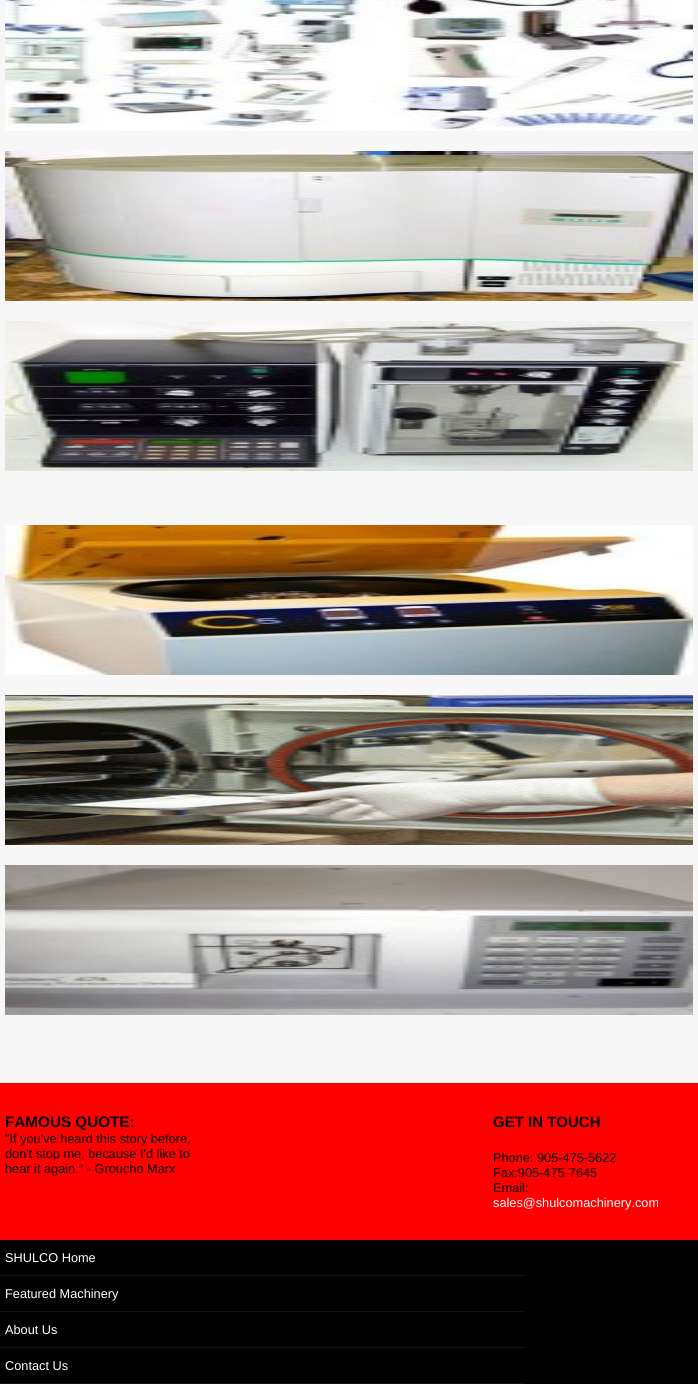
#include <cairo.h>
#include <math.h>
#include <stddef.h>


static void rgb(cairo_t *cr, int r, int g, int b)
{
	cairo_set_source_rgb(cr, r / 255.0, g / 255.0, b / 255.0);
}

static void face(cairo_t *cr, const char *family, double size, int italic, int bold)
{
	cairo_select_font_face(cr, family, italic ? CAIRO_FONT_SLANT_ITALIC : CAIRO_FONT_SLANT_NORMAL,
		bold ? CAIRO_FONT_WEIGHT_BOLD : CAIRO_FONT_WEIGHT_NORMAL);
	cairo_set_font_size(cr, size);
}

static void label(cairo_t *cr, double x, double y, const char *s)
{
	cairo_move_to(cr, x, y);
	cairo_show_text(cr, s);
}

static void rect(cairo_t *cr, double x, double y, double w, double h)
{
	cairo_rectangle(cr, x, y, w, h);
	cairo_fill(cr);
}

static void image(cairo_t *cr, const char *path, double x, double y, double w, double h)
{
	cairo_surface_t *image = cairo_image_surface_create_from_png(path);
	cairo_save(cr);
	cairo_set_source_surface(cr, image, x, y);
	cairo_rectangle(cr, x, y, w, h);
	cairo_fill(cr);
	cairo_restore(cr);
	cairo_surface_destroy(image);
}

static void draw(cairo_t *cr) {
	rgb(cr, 0, 0, 0);
	cairo_paint(cr);
	rgb(cr, 247, 247, 247);
	rect(cr, 0, 0, 698, 1083);
	image(cr, "image0.png", 5, 0, 688, 131);
	image(cr, "image1.png", 5, 151, 688, 150);
	image(cr, "image2.png", 5, 321, 688, 150);
	image(cr, "image3.png", 5, 525, 688, 150);
	image(cr, "image4.png", 5, 695, 688, 150);
	image(cr, "image5.png", 5, 865, 688, 150);
	rgb(cr, 255, 0, 0);
	rect(cr, 0, 1083, 698, 157);
	face(cr, "Liberation Sans", 15.25, 0, 1);
	rgb(cr, 0, 0, 0);
	label(cr, 5, 1127, "FAMOUS QUOTE:");
	face(cr, "Liberation Sans", 12.75, 0, 0);
	label(cr, 5, 1143, "\"If you've heard this story before,");
	label(cr, 5, 1158, "don't stop me, because I'd like to");
	label(cr, 5, 1173, "hear it again.\" - Groucho Marx");
	face(cr, "Liberation Sans", 15, 0, 1);
	label(cr, 493, 1127, "GET IN TOUCH");
	face(cr, "Liberation Sans", 12.75, 0, 0);
	label(cr, 493, 1162, "Phone: 905-475-5622");
	label(cr, 493, 1177, "Fax:905-475-7645");
	label(cr, 493, 1192, "Email:");
	rgb(cr, 255, 255, 255);
	label(cr, 493, 1207, "sales@shulcomachinery.com");
	rgb(cr, 17, 17, 17);
	rect(cr, 0, 1275, 524, 1);
	rgb(cr, 255, 255, 255);
	label(cr, 5, 1262, "SHULCO Home");
	rgb(cr, 17, 17, 17);
	rect(cr, 0, 1311, 524, 1);
	rgb(cr, 255, 255, 255);
	label(cr, 5, 1298, "Featured Machinery");
	rgb(cr, 17, 17, 17);
	rect(cr, 0, 1347, 524, 1);
	rgb(cr, 255, 255, 255);
	label(cr, 5, 1334, "About Us");
	rgb(cr, 17, 17, 17);
	rect(cr, 0, 1383, 524, 1);
	rgb(cr, 255, 255, 255);
	label(cr, 5, 1370, "Contact Us");
}

int main(void) {
	cairo_surface_t *surface = cairo_image_surface_create(CAIRO_FORMAT_RGB24, 698, 1384);
	cairo_t *cr = cairo_create(surface);
	cairo_font_options_t *options = cairo_font_options_create();
	cairo_font_options_set_hint_metrics(options, CAIRO_HINT_METRICS_OFF);
	cairo_font_options_set_hint_style(options, CAIRO_HINT_STYLE_NONE);
	cairo_set_font_options(cr, options);
	cairo_set_miter_limit(cr, 4);
	draw(cr);
	cairo_surface_write_to_png(surface, "render.png");
	cairo_font_options_destroy(options);
	cairo_destroy(cr);
	cairo_surface_destroy(surface);
	return 0;
}
